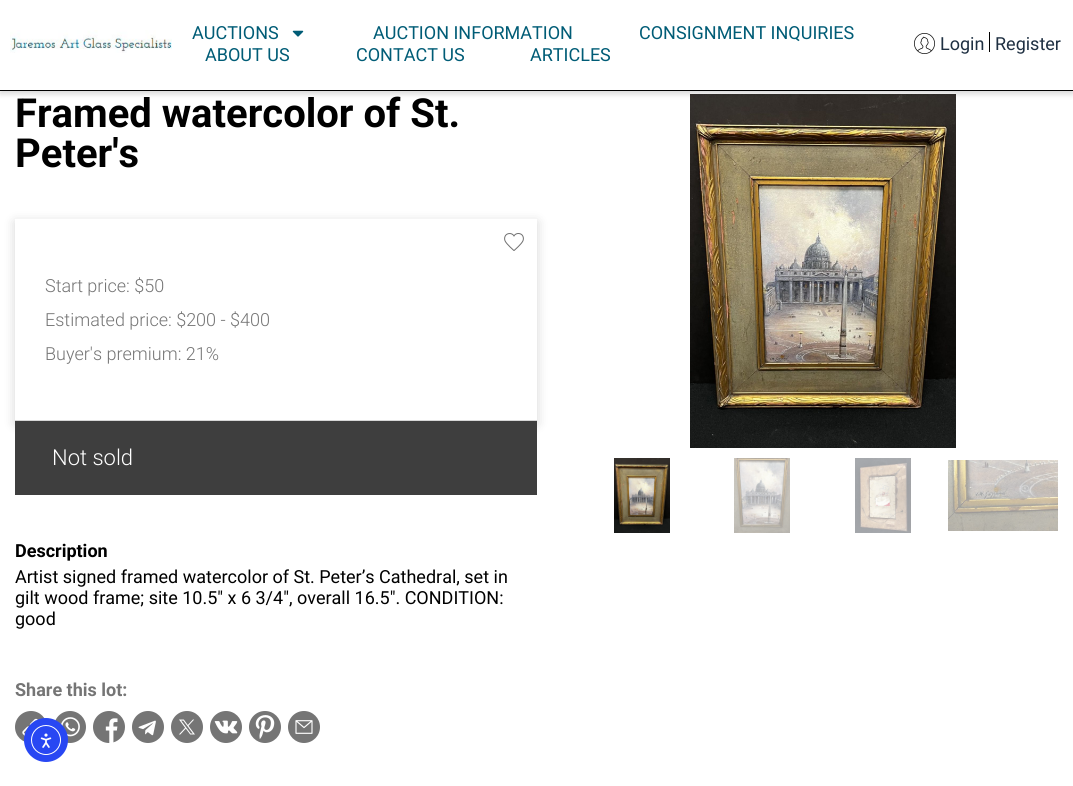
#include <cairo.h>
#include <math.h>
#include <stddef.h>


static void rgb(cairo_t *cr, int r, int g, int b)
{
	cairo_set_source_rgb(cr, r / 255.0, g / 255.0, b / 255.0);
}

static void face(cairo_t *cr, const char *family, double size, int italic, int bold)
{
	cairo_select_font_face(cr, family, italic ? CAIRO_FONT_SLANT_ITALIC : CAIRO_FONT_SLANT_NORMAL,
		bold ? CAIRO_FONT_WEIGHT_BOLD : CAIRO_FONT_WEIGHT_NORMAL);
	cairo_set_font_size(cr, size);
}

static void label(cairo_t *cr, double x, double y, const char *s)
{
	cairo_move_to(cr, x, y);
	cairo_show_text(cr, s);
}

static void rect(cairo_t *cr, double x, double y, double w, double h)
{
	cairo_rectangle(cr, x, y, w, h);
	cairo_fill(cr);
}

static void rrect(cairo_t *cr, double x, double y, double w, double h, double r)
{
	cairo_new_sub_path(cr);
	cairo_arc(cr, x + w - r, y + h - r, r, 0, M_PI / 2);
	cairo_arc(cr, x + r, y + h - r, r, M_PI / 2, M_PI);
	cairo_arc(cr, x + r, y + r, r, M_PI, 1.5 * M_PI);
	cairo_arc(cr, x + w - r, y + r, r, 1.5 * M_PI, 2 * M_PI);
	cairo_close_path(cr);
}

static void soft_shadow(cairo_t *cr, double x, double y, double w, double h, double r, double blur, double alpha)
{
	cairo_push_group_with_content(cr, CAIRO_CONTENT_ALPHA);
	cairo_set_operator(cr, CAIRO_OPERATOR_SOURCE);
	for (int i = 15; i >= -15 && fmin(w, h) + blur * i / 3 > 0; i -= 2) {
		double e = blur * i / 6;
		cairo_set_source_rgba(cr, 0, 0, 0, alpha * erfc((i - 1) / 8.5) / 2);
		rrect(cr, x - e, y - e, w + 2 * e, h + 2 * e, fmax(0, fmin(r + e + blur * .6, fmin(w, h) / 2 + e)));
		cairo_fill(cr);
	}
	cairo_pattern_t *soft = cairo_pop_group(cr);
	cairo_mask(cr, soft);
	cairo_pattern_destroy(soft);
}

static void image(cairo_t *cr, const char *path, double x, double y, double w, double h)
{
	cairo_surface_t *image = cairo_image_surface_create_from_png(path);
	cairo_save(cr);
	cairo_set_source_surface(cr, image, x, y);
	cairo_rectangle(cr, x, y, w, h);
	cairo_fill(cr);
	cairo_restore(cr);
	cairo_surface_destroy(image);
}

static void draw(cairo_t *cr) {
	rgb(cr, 255, 255, 255);
	cairo_paint(cr);
	image(cr, "image12.png", 690, 94, 266, 354);
	rgb(cr, 0, 0, 0);
	soft_shadow(cr, 0, 3, 1073, 91, 0, 3, 0.16);
	rgb(cr, 255, 255, 255);
	rect(cr, 0, 0, 1073, 90);
	rgb(cr, 0, 0, 0);
	rect(cr, 0, 90, 1073, 1);
	image(cr, "image0.png", 10, 30, 162, 23);
	face(cr, "Roboto", 18, 0, 0);
	rgb(cr, 0, 92, 118);
	label(cr, 192, 39, "AUCTIONS");
	image(cr, "image1.png", 292, 30, 12, 7);
	label(cr, 373, 39, "AUCTION INFORMATION");
	label(cr, 639, 39, "CONSIGNMENT INQUIRIES");
	label(cr, 205, 61, "ABOUT US");
	label(cr, 356, 61, "CONTACT US");
	label(cr, 530, 61, "ARTICLES");
	image(cr, "image2.png", 914, 33, 21, 21);
	rgb(cr, 31, 48, 66);
	label(cr, 940, 50, "Login");
	rgb(cr, 0, 0, 0);
	rect(cr, 989, 32, 1, 20);
	rgb(cr, 31, 48, 66);
	label(cr, 995, 50, "Register");
	face(cr, "Roboto", 40, 0, 1);
	rgb(cr, 0, 0, 0);
	label(cr, 15, 127, "Framed watercolor of St.");
	label(cr, 15, 167, "Peter's");
	cairo_save(cr);
	cairo_set_fill_rule(cr, CAIRO_FILL_RULE_EVEN_ODD);
	cairo_new_path(cr);
	cairo_move_to(cr, 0, 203);
	cairo_line_to(cr, 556, 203);
	cairo_line_to(cr, 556, 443);
	cairo_line_to(cr, 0, 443);
	cairo_close_path(cr);
	cairo_move_to(cr, 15, 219);
	cairo_line_to(cr, 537, 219);
	cairo_line_to(cr, 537, 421);
	cairo_line_to(cr, 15, 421);
	cairo_close_path(cr);
	cairo_clip(cr);
	rgb(cr, 0, 0, 0);
	soft_shadow(cr, 15, 222, 522, 202, 0, 6, 0.16);
	cairo_restore(cr);
	image(cr, "image3.png", 504, 233, 20, 18);
	face(cr, "Roboto Light", 18, 0, 0);
	rgb(cr, 117, 117, 117);
	label(cr, 45, 292, "Start price: $50");
	label(cr, 45, 326, "Estimated price: $200 - $400");
	label(cr, 45, 360, "Buyer's premium: 21%");
	rgb(cr, 214, 214, 214);
	rect(cr, 15, 420, 522, 1);
	rgb(cr, 62, 62, 62);
	rect(cr, 15, 421, 522, 74);
	face(cr, "Roboto Light", 22, 0, 0);
	rgb(cr, 255, 255, 255);
	label(cr, 52, 465, "Not sold");
	face(cr, "Roboto", 18, 0, 1);
	rgb(cr, 0, 0, 0);
	label(cr, 15, 557, "Description");
	face(cr, "Roboto", 18, 0, 0);
	label(cr, 15, 583, "Artist signed framed watercolor of St. Peter’s Cathedral, set in");
	label(cr, 15, 604, "gilt wood frame; site 10.5\" x 6 3/4\", overall 16.5\". CONDITION:");
	label(cr, 15, 625, "good");
	face(cr, "Roboto", 18, 0, 1);
	rgb(cr, 117, 117, 117);
	label(cr, 15, 696, "Share this lot:");
	image(cr, "image4.png", 15, 711, 30, 31);
	image(cr, "image5.png", 55, 711, 31, 32);
	image(cr, "image6.png", 93, 711, 32, 32);
	image(cr, "image7.png", 132, 711, 32, 32);
	image(cr, "image8.png", 171, 711, 32, 32);
	image(cr, "image9.png", 210, 711, 32, 32);
	image(cr, "image10.png", 249, 711, 32, 32);
	image(cr, "image11.png", 288, 711, 32, 32);
	image(cr, "image13.png", 614, 458, 56, 75);
	image(cr, "image14.png", 734, 458, 56, 75);
	image(cr, "image15.png", 855, 458, 56, 75);
	image(cr, "image16.png", 948, 460, 110, 71);
	rgb(cr, 40, 71, 243);
	cairo_arc(cr, 46, 740, 22, 0, 2 * M_PI);
	cairo_fill(cr);
	cairo_arc(cr, 46, 740, 14.5, 0, 2 * M_PI);
	rgb(cr, 255, 255, 255);
	cairo_set_line_width(cr, 1);
	cairo_stroke(cr);
	image(cr, "image17.png", 40, 733, 12, 15);
}

int main(void) {
	cairo_surface_t *surface = cairo_image_surface_create(CAIRO_FORMAT_RGB24, 1073, 786);
	cairo_t *cr = cairo_create(surface);
	cairo_font_options_t *options = cairo_font_options_create();
	cairo_font_options_set_hint_metrics(options, CAIRO_HINT_METRICS_OFF);
	cairo_font_options_set_hint_style(options, CAIRO_HINT_STYLE_NONE);
	cairo_set_font_options(cr, options);
	cairo_set_miter_limit(cr, 4);
	draw(cr);
	cairo_surface_write_to_png(surface, "render.png");
	cairo_font_options_destroy(options);
	cairo_destroy(cr);
	cairo_surface_destroy(surface);
	return 0;
}
